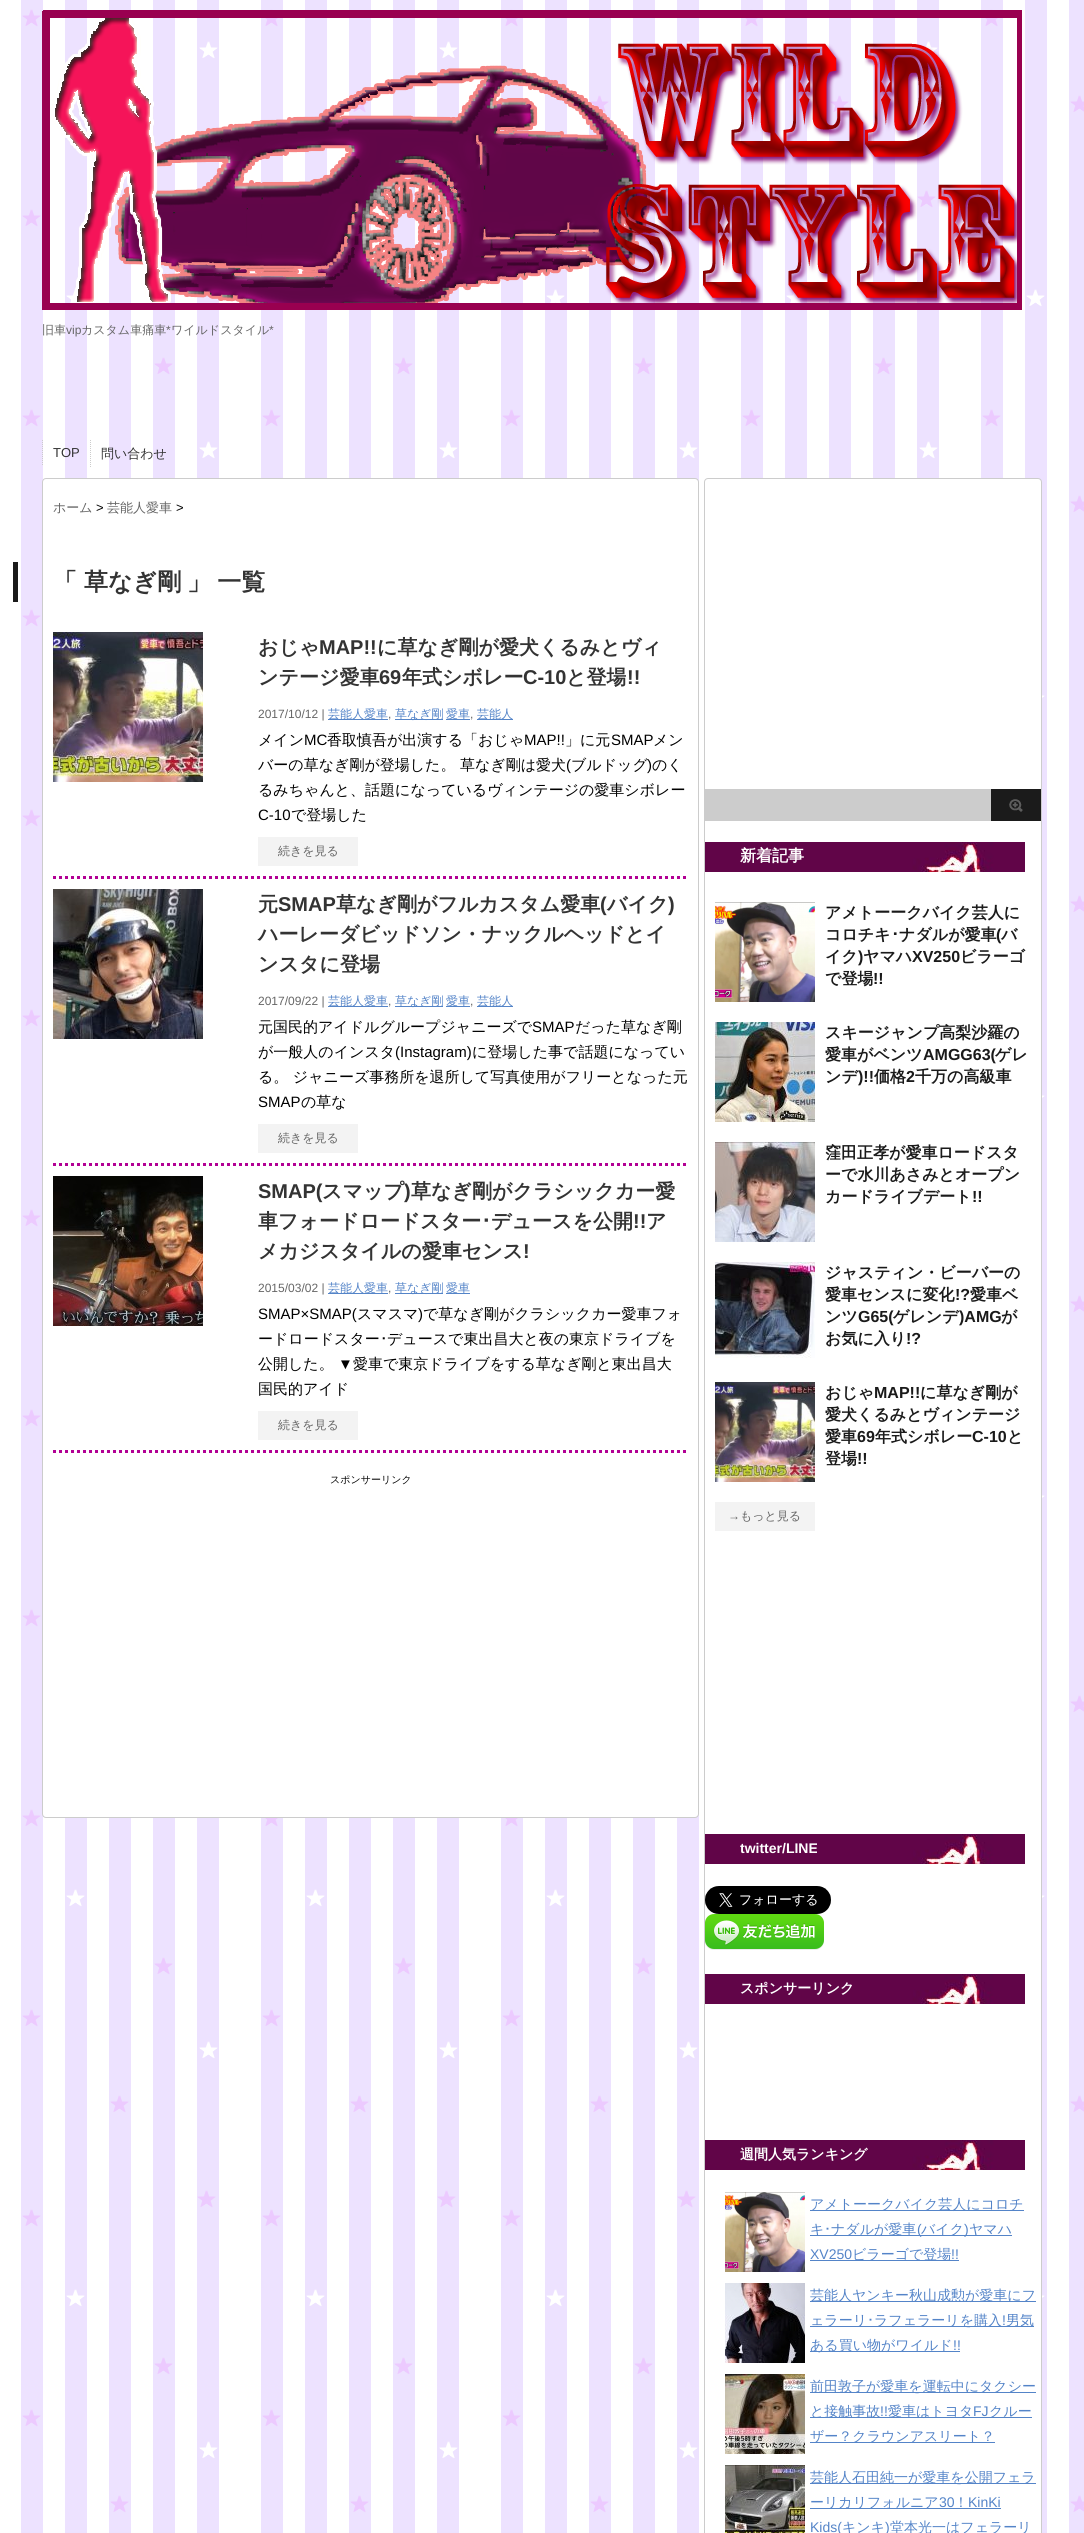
#include <cairo.h>
#include <math.h>
#include <stddef.h>


static void rgb(cairo_t *cr, int r, int g, int b)
{
	cairo_set_source_rgb(cr, r / 255.0, g / 255.0, b / 255.0);
}

static void face(cairo_t *cr, const char *family, double size, int italic, int bold)
{
	cairo_select_font_face(cr, family, italic ? CAIRO_FONT_SLANT_ITALIC : CAIRO_FONT_SLANT_NORMAL,
		bold ? CAIRO_FONT_WEIGHT_BOLD : CAIRO_FONT_WEIGHT_NORMAL);
	cairo_set_font_size(cr, size);
}

static void label(cairo_t *cr, double x, double y, const char *s)
{
	cairo_move_to(cr, x, y);
	cairo_show_text(cr, s);
}

static void tracked(cairo_t *cr, double x, double y, const char *s, double letter, double word)
{
	cairo_move_to(cr, x, y);
	while (*s) {
		char ch[5] = {0};
		int n = 0;
		do ch[n++] = *s++; while ((*s & 0xC0) == 0x80);
		cairo_show_text(cr, ch);
		cairo_rel_move_to(cr, letter + word * (*ch == ' '), 0);
	}
}

static void rect(cairo_t *cr, double x, double y, double w, double h)
{
	cairo_rectangle(cr, x, y, w, h);
	cairo_fill(cr);
}

static void rrect(cairo_t *cr, double x, double y, double w, double h, double r)
{
	cairo_new_sub_path(cr);
	cairo_arc(cr, x + w - r, y + h - r, r, 0, M_PI / 2);
	cairo_arc(cr, x + r, y + h - r, r, M_PI / 2, M_PI);
	cairo_arc(cr, x + r, y + r, r, M_PI, 1.5 * M_PI);
	cairo_arc(cr, x + w - r, y + r, r, 1.5 * M_PI, 2 * M_PI);
	cairo_close_path(cr);
}

static void image(cairo_t *cr, const char *path, double x, double y, double w, double h)
{
	cairo_surface_t *image = cairo_image_surface_create_from_png(path);
	cairo_save(cr);
	cairo_set_source_surface(cr, image, x, y);
	cairo_rectangle(cr, x, y, w, h);
	cairo_fill(cr);
	cairo_restore(cr);
	cairo_surface_destroy(image);
}

static void draw(cairo_t *cr) {
	rgb(cr, 255, 255, 255);
	cairo_paint(cr);
	image(cr, "image0.png", 0, 0, 1084, 2533);
	image(cr, "image1.png", 42, 10, 980, 300);
	face(cr, "WenQuanYi Zen Hei Medium", 12, 0, 0);
	rgb(cr, 102, 102, 102);
	label(cr, 42, 334, "旧車");
	face(cr, "Liberation Sans", 12, 0, 0);
	label(cr, 66, 334, "vip");
	face(cr, "WenQuanYi Zen Hei Medium", 12, 0, 0);
	label(cr, 81, 334, "カスタム車痛車");
	face(cr, "Liberation Sans", 12, 0, 0);
	label(cr, 166, 334, "*");
	face(cr, "WenQuanYi Zen Hei Medium", 12, 0, 0);
	label(cr, 171, 334, "ワイルドスタイル");
	face(cr, "Liberation Sans", 12, 0, 0);
	label(cr, 269, 334, "*");
	cairo_new_path(cr);
	cairo_move_to(cr, 42.5, 440);
	cairo_line_to(cr, 42.5, 465);
	rgb(cr, 204, 204, 204);
	cairo_set_line_width(cr, 1);
	cairo_set_dash(cr, (double[]){1, 1}, 2, 0);
	cairo_stroke(cr);
	face(cr, "Liberation Sans", 13, 0, 0);
	rgb(cr, 51, 51, 51);
	label(cr, 53, 457, "TOP");
	cairo_new_path(cr);
	cairo_move_to(cr, 90.5, 440);
	cairo_line_to(cr, 90.5, 468);
	rgb(cr, 204, 204, 204);
	cairo_stroke(cr);
	face(cr, "WenQuanYi Zen Hei Medium", 13, 0, 0);
	rgb(cr, 51, 51, 51);
	label(cr, 101, 458, "問い合わせ");
	rgb(cr, 255, 255, 255);
	rrect(cr, 42.5, 478.5, 656, 1339, 3.5);
	cairo_fill_preserve(cr);
	rgb(cr, 204, 204, 204);
	cairo_set_dash(cr, NULL, 0, 0);
	cairo_stroke(cr);
	rgb(cr, 102, 102, 102);
	label(cr, 53, 512, "ホーム");
	face(cr, "Liberation Sans", 13, 0, 0);
	rgb(cr, 0, 0, 0);
	label(cr, 96, 512, ">");
	face(cr, "WenQuanYi Zen Hei Medium", 13, 0, 0);
	rgb(cr, 102, 102, 102);
	label(cr, 107, 512, "芸能人愛車");
	face(cr, "Liberation Sans", 13, 0, 0);
	rgb(cr, 0, 0, 0);
	label(cr, 176, 512, ">");
	rgb(cr, 26, 26, 26);
	rect(cr, 13, 562, 5, 40);
	face(cr, "WenQuanYi Zen Hei", 24, 0, 1);
	rgb(cr, 51, 51, 51);
	label(cr, 53, 590, "「");
	label(cr, 84, 590, "草なぎ剛");
	tracked(cr, 187, 590, "」 一覧", 0, -1);
	cairo_new_path(cr);
	cairo_move_to(cr, 53, 877.5);
	cairo_line_to(cr, 688, 877.5);
	rgb(cr, 178, 0, 148);
	cairo_set_line_width(cr, 3);
	cairo_set_dash(cr, (double[]){3, 3}, 2, 0);
	cairo_stroke(cr);
	image(cr, "image2.png", 53, 632, 150, 150);
	face(cr, "WenQuanYi Zen Hei", 20, 0, 1);
	rgb(cr, 51, 51, 51);
	label(cr, 258, 654, "おじゃ");
	face(cr, "Liberation Sans", 20, 0, 1);
	label(cr, 319, 654, "MAP!!");
	face(cr, "WenQuanYi Zen Hei", 20, 0, 1);
	label(cr, 377, 654, "に草なぎ剛が愛犬くるみとヴィ");
	label(cr, 258, 684, "ンテージ愛車");
	face(cr, "Liberation Sans", 20, 0, 1);
	label(cr, 379, 684, "69");
	face(cr, "WenQuanYi Zen Hei", 20, 0, 1);
	label(cr, 402, 684, "年式シボレー");
	face(cr, "Liberation Sans", 20, 0, 1);
	label(cr, 523, 684, "C-10");
	face(cr, "WenQuanYi Zen Hei", 20, 0, 1);
	label(cr, 566, 684, "と登場");
	face(cr, "Liberation Sans", 20, 0, 1);
	label(cr, 627, 684, "!!");
	face(cr, "Liberation Sans", 12, 0, 0);
	rgb(cr, 102, 102, 102);
	label(cr, 258, 718, "2017/10/12 |");
	rgb(cr, 84, 132, 200);
	rect(cr, 328, 719, 60, 1);
	face(cr, "WenQuanYi Zen Hei Medium", 12, 0, 0);
	label(cr, 328, 718, "芸能人愛車");
	face(cr, "Liberation Sans", 12, 0, 0);
	rgb(cr, 102, 102, 102);
	label(cr, 388, 718, ",");
	rgb(cr, 84, 132, 200);
	rect(cr, 395, 719, 48, 1);
	face(cr, "WenQuanYi Zen Hei Medium", 12, 0, 0);
	label(cr, 395, 718, "草なぎ剛");
	rect(cr, 446, 719, 24, 1);
	label(cr, 446, 718, "愛車");
	face(cr, "Liberation Sans", 12, 0, 0);
	rgb(cr, 102, 102, 102);
	label(cr, 470, 718, ",");
	rgb(cr, 84, 132, 200);
	rect(cr, 477, 719, 36, 1);
	face(cr, "WenQuanYi Zen Hei Medium", 12, 0, 0);
	label(cr, 477, 718, "芸能人");
	face(cr, "WenQuanYi Zen Hei Medium", 15, 0, 0);
	rgb(cr, 0, 0, 0);
	label(cr, 258, 745, "メイン");
	face(cr, "Liberation Sans", 15, 0, 0);
	label(cr, 304, 745, "MC");
	face(cr, "WenQuanYi Zen Hei Medium", 15, 0, 0);
	label(cr, 327, 745, "香取慎吾が出演する「おじゃ");
	face(cr, "Liberation Sans", 15, 0, 0);
	label(cr, 524, 745, "MAP!!");
	face(cr, "WenQuanYi Zen Hei Medium", 15, 0, 0);
	label(cr, 565, 745, "」に元");
	face(cr, "Liberation Sans", 15, 0, 0);
	label(cr, 611, 745, "SMAP");
	face(cr, "WenQuanYi Zen Hei Medium", 15, 0, 0);
	label(cr, 653, 745, "メン");
	label(cr, 258, 770, "バーの草なぎ剛が登場した。 草なぎ剛は愛犬");
	face(cr, "Liberation Sans", 15, 0, 0);
	label(cr, 566, 770, "(");
	face(cr, "WenQuanYi Zen Hei Medium", 15, 0, 0);
	label(cr, 571, 770, "ブルドッグ");
	face(cr, "Liberation Sans", 15, 0, 0);
	label(cr, 647, 770, ")");
	face(cr, "WenQuanYi Zen Hei Medium", 15, 0, 0);
	label(cr, 652, 770, "のく");
	label(cr, 258, 795, "るみちゃんと、話題になっているヴィンテージの愛車シボレー");
	face(cr, "Liberation Sans", 15, 0, 0);
	label(cr, 258, 820, "C-10");
	face(cr, "WenQuanYi Zen Hei Medium", 15, 0, 0);
	label(cr, 291, 820, "で登場した");
	rgb(cr, 243, 243, 243);
	rect(cr, 258, 837, 100, 29);
	face(cr, "WenQuanYi Zen Hei Medium", 12, 0, 0);
	rgb(cr, 102, 102, 102);
	label(cr, 278, 855, "続きを見る");
	cairo_new_path(cr);
	cairo_move_to(cr, 53, 1164.5);
	cairo_line_to(cr, 688, 1164.5);
	rgb(cr, 178, 0, 148);
	cairo_stroke(cr);
	image(cr, "image3.png", 53, 889, 150, 150);
	face(cr, "WenQuanYi Zen Hei", 20, 0, 1);
	rgb(cr, 51, 51, 51);
	label(cr, 258, 911, "元");
	face(cr, "Liberation Sans", 20, 0, 1);
	label(cr, 278, 911, "SMAP");
	face(cr, "WenQuanYi Zen Hei", 20, 0, 1);
	label(cr, 336, 911, "草なぎ剛がフルカスタム愛車");
	face(cr, "Liberation Sans", 20, 0, 1);
	label(cr, 600, 911, "(");
	face(cr, "WenQuanYi Zen Hei", 20, 0, 1);
	label(cr, 607, 911, "バイク");
	face(cr, "Liberation Sans", 20, 0, 1);
	label(cr, 668, 911, ")");
	face(cr, "WenQuanYi Zen Hei", 20, 0, 1);
	label(cr, 258, 941, "ハーレーダビッドソン・ナックルヘッドとイ");
	label(cr, 258, 971, "ンスタに登場");
	face(cr, "Liberation Sans", 12, 0, 0);
	rgb(cr, 102, 102, 102);
	label(cr, 258, 1005, "2017/09/22 |");
	rgb(cr, 84, 132, 200);
	rect(cr, 328, 1006, 60, 1);
	face(cr, "WenQuanYi Zen Hei Medium", 12, 0, 0);
	label(cr, 328, 1005, "芸能人愛車");
	face(cr, "Liberation Sans", 12, 0, 0);
	rgb(cr, 102, 102, 102);
	label(cr, 388, 1005, ",");
	rgb(cr, 84, 132, 200);
	rect(cr, 395, 1006, 48, 1);
	face(cr, "WenQuanYi Zen Hei Medium", 12, 0, 0);
	label(cr, 395, 1005, "草なぎ剛");
	rect(cr, 446, 1006, 24, 1);
	label(cr, 446, 1005, "愛車");
	face(cr, "Liberation Sans", 12, 0, 0);
	rgb(cr, 102, 102, 102);
	label(cr, 470, 1005, ",");
	rgb(cr, 84, 132, 200);
	rect(cr, 477, 1006, 36, 1);
	face(cr, "WenQuanYi Zen Hei Medium", 12, 0, 0);
	label(cr, 477, 1005, "芸能人");
	face(cr, "WenQuanYi Zen Hei Medium", 15, 0, 0);
	rgb(cr, 0, 0, 0);
	label(cr, 258, 1032, "元国民的アイドルグループジャニーズで");
	face(cr, "Liberation Sans", 15, 0, 0);
	label(cr, 532, 1032, "SMAP");
	face(cr, "WenQuanYi Zen Hei Medium", 15, 0, 0);
	label(cr, 575, 1032, "だった草なぎ剛");
	label(cr, 258, 1057, "が一般人のインスタ");
	face(cr, "Liberation Sans", 15, 0, 0);
	label(cr, 395, 1057, "(Instagram)");
	face(cr, "WenQuanYi Zen Hei Medium", 15, 0, 0);
	label(cr, 472, 1057, "に登場した事で話題になってい");
	label(cr, 258, 1082, "る。 ジャニーズ事務所を退所して写真使用がフリーとなった元");
	face(cr, "Liberation Sans", 15, 0, 0);
	label(cr, 258, 1107, "SMAP");
	face(cr, "WenQuanYi Zen Hei Medium", 15, 0, 0);
	label(cr, 301, 1107, "の草な");
	rgb(cr, 243, 243, 243);
	rect(cr, 258, 1124, 100, 29);
	face(cr, "WenQuanYi Zen Hei Medium", 12, 0, 0);
	rgb(cr, 102, 102, 102);
	label(cr, 278, 1142, "続きを見る");
	cairo_new_path(cr);
	cairo_move_to(cr, 53, 1451.5);
	cairo_line_to(cr, 688, 1451.5);
	rgb(cr, 178, 0, 148);
	cairo_stroke(cr);
	image(cr, "image4.png", 53, 1176, 150, 150);
	face(cr, "Liberation Sans", 20, 0, 1);
	rgb(cr, 51, 51, 51);
	label(cr, 258, 1198, "SMAP(");
	face(cr, "WenQuanYi Zen Hei", 20, 0, 1);
	label(cr, 322, 1198, "スマップ");
	face(cr, "Liberation Sans", 20, 0, 1);
	label(cr, 404, 1198, ")");
	face(cr, "WenQuanYi Zen Hei", 20, 0, 1);
	label(cr, 411, 1198, "草なぎ剛がクラシックカー愛");
	label(cr, 258, 1228, "車フォードロードスター");
	face(cr, "IPAPGothic", 20, 0, 1);
	label(cr, 481, 1228, "･");
	face(cr, "WenQuanYi Zen Hei", 20, 0, 1);
	label(cr, 491, 1228, "デュースを公開");
	face(cr, "Liberation Sans", 20, 0, 1);
	label(cr, 633, 1228, "!!");
	face(cr, "WenQuanYi Zen Hei", 20, 0, 1);
	label(cr, 646, 1228, "ア");
	label(cr, 258, 1258, "メカジスタイルの愛車センス");
	face(cr, "Liberation Sans", 20, 0, 1);
	label(cr, 523, 1258, "!");
	face(cr, "Liberation Sans", 12, 0, 0);
	rgb(cr, 102, 102, 102);
	label(cr, 258, 1292, "2015/03/02 |");
	rgb(cr, 84, 132, 200);
	rect(cr, 328, 1293, 60, 1);
	face(cr, "WenQuanYi Zen Hei Medium", 12, 0, 0);
	label(cr, 328, 1292, "芸能人愛車");
	face(cr, "Liberation Sans", 12, 0, 0);
	rgb(cr, 102, 102, 102);
	label(cr, 388, 1292, ",");
	rgb(cr, 84, 132, 200);
	rect(cr, 395, 1293, 48, 1);
	face(cr, "WenQuanYi Zen Hei Medium", 12, 0, 0);
	label(cr, 395, 1292, "草なぎ剛");
	rect(cr, 446, 1293, 24, 1);
	label(cr, 446, 1292, "愛車");
	face(cr, "Liberation Sans", 15, 0, 0);
	rgb(cr, 0, 0, 0);
	label(cr, 258, 1319, "SMAP×SMAP(");
	face(cr, "WenQuanYi Zen Hei Medium", 15, 0, 0);
	label(cr, 357, 1319, "スマスマ");
	face(cr, "Liberation Sans", 15, 0, 0);
	label(cr, 418, 1319, ")");
	face(cr, "WenQuanYi Zen Hei Medium", 15, 0, 0);
	label(cr, 423, 1319, "で草なぎ剛がクラシックカー愛車フォ");
	label(cr, 258, 1344, "ードロードスター");
	face(cr, "IPAPGothic", 15, 0, 0);
	label(cr, 380, 1344, "･");
	face(cr, "WenQuanYi Zen Hei Medium", 15, 0, 0);
	label(cr, 387, 1344, "デュースで東出昌大と夜の東京ドライブを");
	label(cr, 258, 1369, "公開した。");
	face(cr, "Liberation Sans", 15, 0, 0);
	label(cr, 338, 1369, "▼");
	face(cr, "WenQuanYi Zen Hei Medium", 15, 0, 0);
	label(cr, 353, 1369, "愛車で東京ドライブをする草なぎ剛と東出昌大");
	label(cr, 258, 1394, "国民的アイド");
	rgb(cr, 243, 243, 243);
	rect(cr, 258, 1411, 100, 29);
	face(cr, "WenQuanYi Zen Hei Medium", 12, 0, 0);
	rgb(cr, 102, 102, 102);
	label(cr, 278, 1429, "続きを見る");
	face(cr, "WenQuanYi Zen Hei Medium", 10, 0, 0);
	rgb(cr, 0, 0, 0);
	label(cr, 330, 1483, "スポンサーリンク");
	rgb(cr, 255, 255, 255);
	rrect(cr, 704.5, 478.5, 337, 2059, 3.5);
	cairo_fill_preserve(cr);
	rgb(cr, 204, 204, 204);
	cairo_set_line_width(cr, 1);
	cairo_set_dash(cr, NULL, 0, 0);
	cairo_stroke(cr);
	rect(cr, 705, 789, 286, 32);
	image(cr, "image5.png", 991, 789, 50, 32);
	image(cr, "image6.png", 705, 842, 320, 30);
	face(cr, "WenQuanYi Zen Hei", 16, 0, 1);
	rgb(cr, 255, 255, 255);
	label(cr, 740, 861, "新着記事");
	image(cr, "image7.png", 715, 902, 100, 100);
	rgb(cr, 26, 26, 26);
	label(cr, 825, 918, "アメトーークバイク芸人に");
	label(cr, 825, 940, "コロチキ");
	face(cr, "IPAPGothic", 16, 0, 1);
	label(cr, 891, 940, "･");
	face(cr, "WenQuanYi Zen Hei", 16, 0, 1);
	label(cr, 899, 940, "ナダルが愛車");
	face(cr, "Liberation Sans", 16, 0, 1);
	label(cr, 996, 940, "(");
	face(cr, "WenQuanYi Zen Hei", 16, 0, 1);
	label(cr, 1001, 940, "バ");
	label(cr, 825, 962, "イク");
	face(cr, "Liberation Sans", 16, 0, 1);
	label(cr, 858, 962, ")");
	face(cr, "WenQuanYi Zen Hei", 16, 0, 1);
	label(cr, 863, 962, "ヤマハ");
	face(cr, "Liberation Sans", 16, 0, 1);
	label(cr, 912, 962, "XV250");
	face(cr, "WenQuanYi Zen Hei", 16, 0, 1);
	label(cr, 960, 962, "ビラーゴ");
	label(cr, 825, 984, "で登場");
	face(cr, "Liberation Sans", 16, 0, 1);
	label(cr, 873, 984, "!!");
	image(cr, "image8.png", 715, 1022, 100, 100);
	face(cr, "WenQuanYi Zen Hei", 16, 0, 1);
	label(cr, 825, 1038, "スキージャンプ高梨沙羅の");
	label(cr, 825, 1060, "愛車がベンツ");
	face(cr, "Liberation Sans", 16, 0, 1);
	label(cr, 923, 1060, "AMGG63(");
	face(cr, "WenQuanYi Zen Hei", 16, 0, 1);
	label(cr, 995, 1060, "ゲレ");
	label(cr, 825, 1082, "ンデ");
	face(cr, "Liberation Sans", 16, 0, 1);
	label(cr, 858, 1082, ")!!");
	face(cr, "WenQuanYi Zen Hei", 16, 0, 1);
	label(cr, 874, 1082, "価格");
	face(cr, "Liberation Sans", 16, 0, 1);
	label(cr, 906, 1082, "2");
	face(cr, "WenQuanYi Zen Hei", 16, 0, 1);
	label(cr, 915, 1082, "千万の高級車");
	image(cr, "image9.png", 715, 1142, 100, 100);
	label(cr, 825, 1158, "窪田正孝が愛車ロードスタ");
	label(cr, 825, 1180, "ーで水川あさみとオープン");
	label(cr, 825, 1202, "カードライブデート");
	face(cr, "Liberation Sans", 16, 0, 1);
	label(cr, 972, 1202, "!!");
	image(cr, "image10.png", 715, 1262, 100, 96);
	face(cr, "WenQuanYi Zen Hei", 16, 0, 1);
	label(cr, 825, 1278, "ジャスティン・ビーバーの");
	label(cr, 825, 1300, "愛車センスに変化");
	face(cr, "Liberation Sans", 16, 0, 1);
	label(cr, 955, 1300, "!?");
	face(cr, "WenQuanYi Zen Hei", 16, 0, 1);
	label(cr, 970, 1300, "愛車ベ");
	label(cr, 825, 1322, "ンツ");
	face(cr, "Liberation Sans", 16, 0, 1);
	label(cr, 858, 1322, "G65(");
	face(cr, "WenQuanYi Zen Hei", 16, 0, 1);
	label(cr, 893, 1322, "ゲレンデ");
	face(cr, "Liberation Sans", 16, 0, 1);
	label(cr, 959, 1322, ")AMG");
	face(cr, "WenQuanYi Zen Hei", 16, 0, 1);
	label(cr, 1001, 1322, "が");
	label(cr, 825, 1344, "お気に入り");
	face(cr, "Liberation Sans", 16, 0, 1);
	label(cr, 906, 1344, "!?");
	image(cr, "image11.png", 715, 1382, 100, 100);
	face(cr, "WenQuanYi Zen Hei", 16, 0, 1);
	label(cr, 825, 1398, "おじゃ");
	face(cr, "Liberation Sans", 16, 0, 1);
	label(cr, 874, 1398, "MAP!!");
	face(cr, "WenQuanYi Zen Hei", 16, 0, 1);
	label(cr, 920, 1398, "に草なぎ剛が");
	label(cr, 825, 1420, "愛犬くるみとヴィンテージ");
	label(cr, 825, 1442, "愛車");
	face(cr, "Liberation Sans", 16, 0, 1);
	label(cr, 857, 1442, "69");
	face(cr, "WenQuanYi Zen Hei", 16, 0, 1);
	label(cr, 875, 1442, "年式シボレー");
	face(cr, "Liberation Sans", 16, 0, 1);
	label(cr, 972, 1442, "C-10");
	face(cr, "WenQuanYi Zen Hei", 16, 0, 1);
	label(cr, 1007, 1442, "と");
	label(cr, 825, 1464, "登場");
	face(cr, "Liberation Sans", 16, 0, 1);
	label(cr, 857, 1464, "!!");
	rgb(cr, 243, 243, 243);
	rect(cr, 715, 1502, 100, 29);
	face(cr, "Liberation Sans", 12, 0, 0);
	rgb(cr, 102, 102, 102);
	label(cr, 728, 1520, "→");
	face(cr, "WenQuanYi Zen Hei Medium", 12, 0, 0);
	label(cr, 740, 1520, "もっと見る");
	image(cr, "image6.png", 705, 1834, 320, 30);
	face(cr, "Liberation Sans", 14, 0, 1);
	rgb(cr, 255, 255, 255);
	label(cr, 740, 1853, "twitter/LINE");
	image(cr, "image12.png", 705, 1886, 126, 28);
	image(cr, "image13.png", 705, 1914, 119, 36);
	image(cr, "image6.png", 705, 1974, 320, 30);
	face(cr, "WenQuanYi Zen Hei", 14, 0, 1);
	label(cr, 740, 1993, "スポンサーリンク");
	image(cr, "image6.png", 705, 2140, 320, 30);
	label(cr, 740, 2159, "週間人気ランキング");
	image(cr, "image14.png", 725, 2192, 80, 80);
	rgb(cr, 84, 132, 200);
	rect(cr, 810, 2210, 214, 1);
	face(cr, "WenQuanYi Zen Hei Medium", 14, 0, 0);
	label(cr, 810, 2209, "アメトーークバイク芸人にコロチ");
	rect(cr, 810, 2235, 202, 1);
	label(cr, 810, 2234, "キ");
	face(cr, "IPAPGothic", 14, 0, 0);
	label(cr, 824, 2234, "･");
	face(cr, "WenQuanYi Zen Hei Medium", 14, 0, 0);
	label(cr, 831, 2234, "ナダルが愛車");
	face(cr, "Liberation Sans", 14, 0, 0);
	label(cr, 917, 2234, "(");
	face(cr, "WenQuanYi Zen Hei Medium", 14, 0, 0);
	label(cr, 921, 2234, "バイク");
	face(cr, "Liberation Sans", 14, 0, 0);
	label(cr, 964, 2234, ")");
	face(cr, "WenQuanYi Zen Hei Medium", 14, 0, 0);
	label(cr, 969, 2234, "ヤマハ");
	face(cr, "Liberation Sans", 14, 0, 0);
	label(cr, 810, 2259, "XV250");
	rect(cr, 810, 2260, 149, 1);
	face(cr, "WenQuanYi Zen Hei Medium", 14, 0, 0);
	label(cr, 852, 2259, "ビラーゴで登場");
	face(cr, "Liberation Sans", 14, 0, 0);
	label(cr, 951, 2259, "!!");
	image(cr, "image15.png", 725, 2283, 80, 80);
	rect(cr, 810, 2301, 226, 1);
	face(cr, "WenQuanYi Zen Hei Medium", 14, 0, 0);
	label(cr, 810, 2300, "芸能人ヤンキー秋山成勲が愛車にフ");
	rect(cr, 810, 2326, 224, 1);
	label(cr, 810, 2325, "ェラーリ");
	face(cr, "IPAPGothic", 14, 0, 0);
	label(cr, 867, 2325, "･");
	face(cr, "WenQuanYi Zen Hei Medium", 14, 0, 0);
	label(cr, 874, 2325, "ラフェラーリを購入");
	face(cr, "Liberation Sans", 14, 0, 0);
	label(cr, 1002, 2325, "!");
	face(cr, "WenQuanYi Zen Hei Medium", 14, 0, 0);
	label(cr, 1006, 2325, "男気");
	rect(cr, 810, 2351, 150, 1);
	label(cr, 810, 2350, "ある買い物がワイルド");
	face(cr, "Liberation Sans", 14, 0, 0);
	label(cr, 953, 2350, "!!");
	image(cr, "image16.png", 725, 2374, 80, 80);
	rect(cr, 810, 2392, 226, 1);
	face(cr, "WenQuanYi Zen Hei Medium", 14, 0, 0);
	label(cr, 810, 2391, "前田敦子が愛車を運転中にタクシー");
	rect(cr, 810, 2417, 222, 1);
	label(cr, 810, 2416, "と接触事故");
	face(cr, "Liberation Sans", 14, 0, 0);
	label(cr, 880, 2416, "!!");
	face(cr, "WenQuanYi Zen Hei Medium", 14, 0, 0);
	label(cr, 888, 2416, "愛車はトヨタ");
	face(cr, "Liberation Sans", 14, 0, 0);
	label(cr, 973, 2416, "FJ");
	face(cr, "WenQuanYi Zen Hei Medium", 14, 0, 0);
	label(cr, 989, 2416, "クルー");
	rect(cr, 810, 2442, 185, 1);
	label(cr, 810, 2441, "ザー？クラウンアスリート？");
	image(cr, "image17.png", 725, 2465, 80, 68);
	rect(cr, 810, 2483, 226, 1);
	label(cr, 810, 2482, "芸能人石田純一が愛車を公開フェラ");
	rect(cr, 810, 2508, 191, 1);
	label(cr, 810, 2507, "ーリカリフォルニア");
	face(cr, "Liberation Sans", 14, 0, 0);
	label(cr, 939, 2507, "30");
	face(cr, "WenQuanYi Zen Hei Medium", 14, 0, 0);
	label(cr, 954, 2507, "！");
	face(cr, "Liberation Sans", 14, 0, 0);
	label(cr, 968, 2507, "KinKi");
	label(cr, 810, 2532, "Kids(");
	face(cr, "WenQuanYi Zen Hei Medium", 14, 0, 0);
	label(cr, 842, 2532, "キンキ");
	face(cr, "Liberation Sans", 14, 0, 0);
	label(cr, 885, 2532, ")");
	face(cr, "WenQuanYi Zen Hei Medium", 14, 0, 0);
	label(cr, 890, 2532, "堂本光一はフェラーリ");
}

int main(void) {
	cairo_surface_t *surface = cairo_image_surface_create(CAIRO_FORMAT_RGB24, 1084, 2533);
	cairo_t *cr = cairo_create(surface);
	cairo_font_options_t *options = cairo_font_options_create();
	cairo_font_options_set_hint_metrics(options, CAIRO_HINT_METRICS_OFF);
	cairo_font_options_set_hint_style(options, CAIRO_HINT_STYLE_NONE);
	cairo_set_font_options(cr, options);
	cairo_set_miter_limit(cr, 4);
	draw(cr);
	cairo_surface_write_to_png(surface, "render.png");
	cairo_font_options_destroy(options);
	cairo_destroy(cr);
	cairo_surface_destroy(surface);
	return 0;
}
